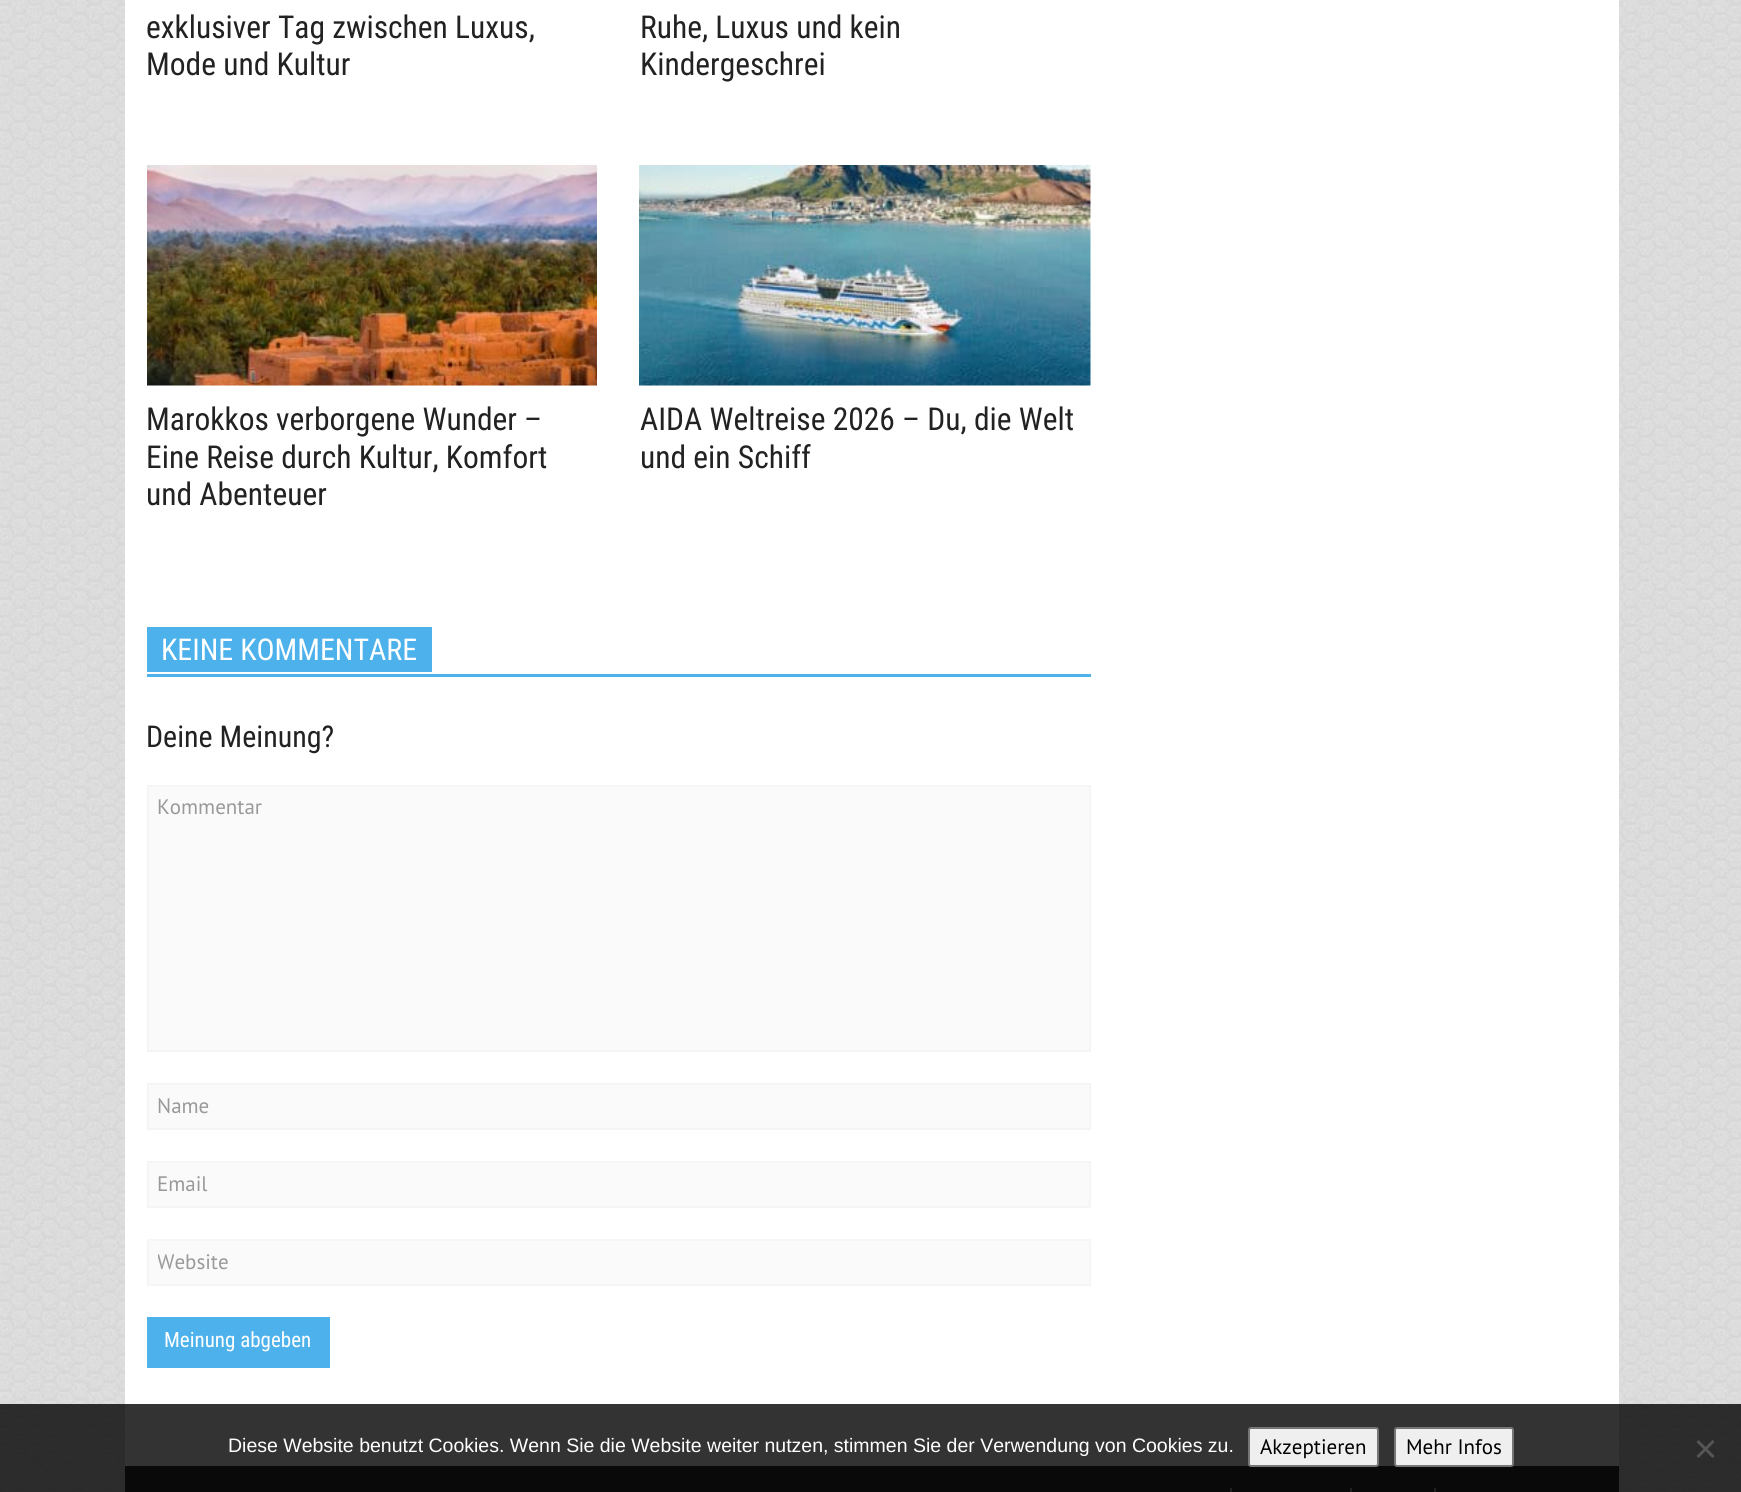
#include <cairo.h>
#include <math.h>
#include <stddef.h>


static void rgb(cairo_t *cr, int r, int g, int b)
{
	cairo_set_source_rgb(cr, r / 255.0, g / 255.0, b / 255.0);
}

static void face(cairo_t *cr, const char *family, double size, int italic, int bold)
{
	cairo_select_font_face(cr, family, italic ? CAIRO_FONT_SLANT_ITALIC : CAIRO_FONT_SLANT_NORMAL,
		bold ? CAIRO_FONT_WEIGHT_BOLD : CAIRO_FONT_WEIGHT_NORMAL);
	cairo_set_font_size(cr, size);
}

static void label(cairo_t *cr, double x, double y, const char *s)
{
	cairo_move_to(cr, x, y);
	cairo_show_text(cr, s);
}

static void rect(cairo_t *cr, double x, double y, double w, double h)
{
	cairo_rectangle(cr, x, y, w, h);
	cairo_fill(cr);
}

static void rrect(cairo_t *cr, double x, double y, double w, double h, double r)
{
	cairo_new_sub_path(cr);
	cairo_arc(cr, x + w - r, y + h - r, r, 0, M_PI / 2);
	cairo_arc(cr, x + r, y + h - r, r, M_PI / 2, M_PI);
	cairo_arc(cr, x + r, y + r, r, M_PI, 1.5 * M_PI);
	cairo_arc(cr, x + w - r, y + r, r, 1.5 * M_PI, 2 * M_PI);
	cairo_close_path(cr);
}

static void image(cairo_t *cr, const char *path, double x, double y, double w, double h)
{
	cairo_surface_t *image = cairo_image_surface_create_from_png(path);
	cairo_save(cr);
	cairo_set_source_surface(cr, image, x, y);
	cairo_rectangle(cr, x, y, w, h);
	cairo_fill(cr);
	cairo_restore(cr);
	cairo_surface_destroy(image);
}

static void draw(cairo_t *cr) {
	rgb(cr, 255, 255, 255);
	cairo_paint(cr);
	image(cr, "image0.png", 0, 0, 1741, 1492);
	rgb(cr, 255, 255, 255);
	rect(cr, 125, 0, 1494, 1466);
	face(cr, "Roboto Condensed", 31.5, 0, 0);
	rgb(cr, 34, 34, 34);
	label(cr, 146, 38, "exklusiver Tag zwischen Luxus,");
	label(cr, 146, 75, "Mode und Kultur");
	label(cr, 640, 38, "Ruhe, Luxus und kein");
	label(cr, 640, 75, "Kindergeschrei");
	image(cr, "image1.png", 147, 165, 450, 221);
	label(cr, 146, 430, "Marokkos verborgene Wunder –");
	label(cr, 146, 468, "Eine Reise durch Kultur, Komfort");
	label(cr, 146, 505, "und Abenteuer");
	image(cr, "image2.png", 639, 165, 452, 221);
	label(cr, 640, 430, "AIDA Weltreise 2026 – Du, die Welt");
	label(cr, 640, 468, "und ein Schiff");
	rgb(cr, 77, 178, 236);
	rect(cr, 147, 674, 944, 3);
	rect(cr, 147, 627, 285, 45);
	face(cr, "Roboto Condensed", 30, 0, 0);
	rgb(cr, 255, 255, 255);
	label(cr, 161, 660, "KEINE KOMMENTARE");
	rgb(cr, 34, 34, 34);
	label(cr, 146, 747, "Deine Meinung?");
	rgb(cr, 250, 250, 250);
	cairo_rectangle(cr, 148, 786, 942, 265);
	cairo_fill_preserve(cr);
	rgb(cr, 245, 245, 245);
	cairo_stroke(cr);
	face(cr, "PT Sans", 21, 0, 0);
	rgb(cr, 153, 153, 153);
	label(cr, 157, 814, "Kommentar");
	rgb(cr, 250, 250, 250);
	cairo_rectangle(cr, 148, 1084, 942, 45);
	cairo_fill_preserve(cr);
	rgb(cr, 245, 245, 245);
	cairo_stroke(cr);
	rgb(cr, 153, 153, 153);
	label(cr, 157, 1113, "Name");
	rgb(cr, 250, 250, 250);
	cairo_rectangle(cr, 148, 1162, 942, 45);
	cairo_fill_preserve(cr);
	rgb(cr, 245, 245, 245);
	cairo_stroke(cr);
	rgb(cr, 153, 153, 153);
	label(cr, 157, 1191, "Email");
	rgb(cr, 250, 250, 250);
	cairo_rectangle(cr, 148, 1240, 942, 45);
	cairo_fill_preserve(cr);
	rgb(cr, 245, 245, 245);
	cairo_stroke(cr);
	cairo_save(cr);
	cairo_rectangle(cr, 158, 1248, 922, 27);
	cairo_clip(cr);
	rgb(cr, 153, 153, 153);
	label(cr, 157, 1269, "Website");
	cairo_restore(cr);
	rgb(cr, 77, 178, 236);
	rect(cr, 147, 1317, 183, 51);
	face(cr, "Roboto Condensed", 21, 0, 0);
	rgb(cr, 255, 255, 255);
	label(cr, 164, 1347, "Meinung abgeben");
	rgb(cr, 43, 43, 43);
	rect(cr, 125, 1466, 1494, 26);
	rgb(cr, 165, 165, 165);
	rect(cr, 1230, 1488, 2, 4);
	rect(cr, 1350, 1488, 2, 4);
	rect(cr, 1434, 1488, 2, 4);
	cairo_set_source_rgba(cr, 0.008, 0, 0, 0.8);
	rect(cr, 0, 1404, 1741, 88);
	face(cr, "Liberation Sans", 19.5, 0, 0);
	rgb(cr, 255, 255, 255);
	label(cr, 228, 1452, "Diese Website benutzt Cookies. Wenn Sie die Website weiter nutzen, stimmen Sie der Verwendung von Cookies zu.");
	rgb(cr, 239, 239, 239);
	rrect(cr, 1249, 1428, 129, 38, 2);
	cairo_fill_preserve(cr);
	rgb(cr, 118, 118, 118);
	cairo_stroke(cr);
	face(cr, "PT Sans", 21, 0, 0);
	rgb(cr, 0, 0, 0);
	label(cr, 1260, 1454, "Akzeptieren");
	rgb(cr, 239, 239, 239);
	rrect(cr, 1395, 1428, 118, 38, 2);
	cairo_fill_preserve(cr);
	rgb(cr, 118, 118, 118);
	cairo_stroke(cr);
	rgb(cr, 0, 0, 0);
	label(cr, 1406, 1454, "Mehr Infos");
	rgb(cr, 87, 86, 86);
	cairo_new_path(cr);
	cairo_move_to(cr, 1712.5, 1440);
	cairo_line_to(cr, 1714.5, 1442);
	cairo_line_to(cr, 1698.5, 1458);
	cairo_line_to(cr, 1696.5, 1456);
	cairo_close_path(cr);
	cairo_fill(cr);
	cairo_new_path(cr);
	cairo_move_to(cr, 1696.5, 1442);
	cairo_line_to(cr, 1698.5, 1440);
	cairo_line_to(cr, 1714.5, 1456);
	cairo_line_to(cr, 1712.5, 1458);
	cairo_close_path(cr);
	cairo_fill(cr);
}

int main(void) {
	cairo_surface_t *surface = cairo_image_surface_create(CAIRO_FORMAT_RGB24, 1741, 1492);
	cairo_t *cr = cairo_create(surface);
	cairo_font_options_t *options = cairo_font_options_create();
	cairo_font_options_set_hint_metrics(options, CAIRO_HINT_METRICS_OFF);
	cairo_font_options_set_hint_style(options, CAIRO_HINT_STYLE_NONE);
	cairo_set_font_options(cr, options);
	cairo_set_miter_limit(cr, 4);
	draw(cr);
	cairo_surface_write_to_png(surface, "render.png");
	cairo_font_options_destroy(options);
	cairo_destroy(cr);
	cairo_surface_destroy(surface);
	return 0;
}
